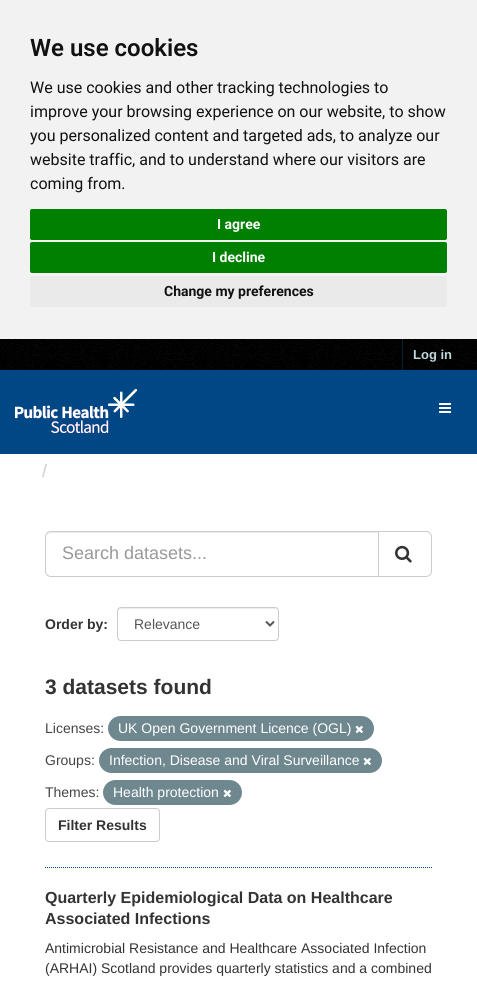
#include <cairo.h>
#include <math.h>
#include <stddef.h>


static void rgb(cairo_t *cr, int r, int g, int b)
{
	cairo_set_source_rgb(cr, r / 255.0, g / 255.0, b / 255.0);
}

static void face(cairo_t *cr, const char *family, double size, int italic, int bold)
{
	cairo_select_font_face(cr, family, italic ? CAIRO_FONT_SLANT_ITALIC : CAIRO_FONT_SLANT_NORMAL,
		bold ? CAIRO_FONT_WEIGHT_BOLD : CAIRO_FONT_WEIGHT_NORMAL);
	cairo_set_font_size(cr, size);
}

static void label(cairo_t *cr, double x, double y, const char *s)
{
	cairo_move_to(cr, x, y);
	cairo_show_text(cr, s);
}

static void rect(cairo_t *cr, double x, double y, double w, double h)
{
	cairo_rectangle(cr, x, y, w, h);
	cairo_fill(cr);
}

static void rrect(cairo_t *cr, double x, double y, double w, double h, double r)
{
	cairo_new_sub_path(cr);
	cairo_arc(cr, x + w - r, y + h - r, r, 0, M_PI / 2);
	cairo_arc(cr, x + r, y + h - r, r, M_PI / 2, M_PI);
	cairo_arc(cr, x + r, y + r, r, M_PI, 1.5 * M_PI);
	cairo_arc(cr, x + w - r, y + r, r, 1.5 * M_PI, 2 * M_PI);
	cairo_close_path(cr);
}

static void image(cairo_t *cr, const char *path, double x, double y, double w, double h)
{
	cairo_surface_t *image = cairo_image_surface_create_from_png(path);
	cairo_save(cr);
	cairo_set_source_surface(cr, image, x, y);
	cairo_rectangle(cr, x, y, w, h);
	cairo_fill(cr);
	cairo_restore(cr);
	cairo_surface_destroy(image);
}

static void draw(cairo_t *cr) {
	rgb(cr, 0, 0, 0);
	cairo_paint(cr);
	rgb(cr, 242, 242, 242);
	rect(cr, 0, 0, 477, 339);
	face(cr, "Roboto SemiBold", 24, 0, 0);
	rgb(cr, 17, 17, 17);
	label(cr, 30, 56, "We use cookies");
	face(cr, "Roboto", 16, 0, 0);
	label(cr, 30, 93, "We use cookies and other tracking technologies to");
	label(cr, 30, 117, "improve your browsing experience on our website, to show");
	label(cr, 30, 141, "you personalized content and targeted ads, to analyze our");
	label(cr, 30, 165, "website traffic, and to understand where our visitors are");
	label(cr, 30, 189, "coming from.");
	rgb(cr, 0, 128, 0);
	rrect(cr, 30, 209, 417, 31, 2);
	cairo_fill(cr);
	face(cr, "Roboto", 14, 0, 1);
	rgb(cr, 255, 255, 255);
	label(cr, 217, 229, "I agree");
	rgb(cr, 0, 128, 0);
	rrect(cr, 30, 242, 417, 31, 2);
	cairo_fill(cr);
	rgb(cr, 255, 255, 255);
	label(cr, 212, 262, "I decline");
	rgb(cr, 234, 234, 234);
	rrect(cr, 30, 276, 417, 31, 2);
	cairo_fill(cr);
	rgb(cr, 17, 17, 17);
	label(cr, 164, 296, "Change my preferences");
	image(cr, "image0.png", 0, 339, 477, 31);
	rgb(cr, 0, 35, 46);
	rect(cr, 402, 339, 1, 31);
	face(cr, "Liberation Sans", 13, 0, 1);
	rgb(cr, 191, 215, 222);
	label(cr, 413, 359, "Log in");
	rgb(cr, 0, 71, 133);
	rect(cr, 0, 370, 477, 84);
	image(cr, "image1.png", 15, 389, 122, 44);
	image(cr, "image2.png", 439, 403, 12, 10);
	rgb(cr, 255, 255, 255);
	rect(cr, 0, 454, 477, 533);
	face(cr, "Liberation Sans", 18, 0, 0);
	rgb(cr, 204, 204, 204);
	label(cr, 42, 477, "/");
	cairo_new_path(cr);
	cairo_move_to(cr, 45, 867.5);
	cairo_line_to(cr, 432, 867.5);
	rgb(cr, 0, 71, 133);
	cairo_set_line_width(cr, 1);
	cairo_set_dash(cr, (double[]){1, 1}, 2, 0);
	cairo_stroke(cr);
	rgb(cr, 236, 236, 236);
	cairo_new_path(cr);
	cairo_move_to(cr, 51, 533);
	cairo_line_to(cr, 378, 533);
	cairo_line_to(cr, 378, 532);
	cairo_line_to(cr, 51, 532);
	cairo_curve_to(cr, 48, 532, 46, 535, 46, 538);
	cairo_curve_to(cr, 46, 535, 48, 533, 51, 533);
	cairo_close_path(cr);
	cairo_fill(cr);
	cairo_new_path(cr);
	cairo_move_to(cr, 51, 531.5);
	cairo_line_to(cr, 378.5, 531.5);
	cairo_line_to(cr, 378.5, 576.5);
	cairo_line_to(cr, 51, 576.5);
	cairo_curve_to(cr, 48, 576.5, 45.5, 574, 45.5, 571);
	cairo_line_to(cr, 45.5, 537);
	cairo_curve_to(cr, 45.5, 534, 48, 531.5, 51, 531.5);
	cairo_close_path(cr);
	rgb(cr, 204, 204, 204);
	cairo_set_dash(cr, NULL, 0, 0);
	cairo_stroke(cr);
	rgb(cr, 153, 153, 153);
	label(cr, 62, 559, "Search datasets...");
	rgb(cr, 255, 255, 255);
	cairo_new_path(cr);
	cairo_move_to(cr, 378.5, 531.5);
	cairo_line_to(cr, 426, 531.5);
	cairo_curve_to(cr, 429, 531.5, 431.5, 534, 431.5, 537);
	cairo_line_to(cr, 431.5, 571);
	cairo_curve_to(cr, 431.5, 574, 429, 576.5, 426, 576.5);
	cairo_line_to(cr, 378.5, 576.5);
	cairo_close_path(cr);
	cairo_fill_preserve(cr);
	rgb(cr, 204, 204, 204);
	cairo_stroke(cr);
	image(cr, "image3.png", 395, 545, 17, 18);
	face(cr, "Liberation Sans", 14, 0, 1);
	rgb(cr, 51, 51, 51);
	label(cr, 45, 629, "Order by:");
	rgb(cr, 236, 236, 236);
	cairo_new_path(cr);
	cairo_move_to(cr, 121, 609);
	cairo_line_to(cr, 275, 609);
	cairo_curve_to(cr, 277, 609, 278, 610, 278, 612);
	cairo_curve_to(cr, 278, 610, 277, 608, 275, 608);
	cairo_line_to(cr, 120, 608);
	cairo_curve_to(cr, 118, 608, 118, 610, 118, 612);
	cairo_curve_to(cr, 118, 610, 119, 609, 121, 609);
	cairo_close_path(cr);
	cairo_fill(cr);
	rrect(cr, 117.5, 607.5, 161, 33, 3.5);
	rgb(cr, 204, 204, 204);
	cairo_stroke(cr);
	cairo_new_path(cr);
	cairo_move_to(cr, 266, 621.5);
	cairo_line_to(cr, 270, 625.5);
	cairo_line_to(cr, 274, 621.5);
	rgb(cr, 85, 85, 85);
	cairo_set_line_width(cr, 2);
	cairo_stroke(cr);
	face(cr, "Liberation Sans", 14, 0, 0);
	label(cr, 134, 629, "Relevance");
	face(cr, "Liberation Sans", 21, 0, 1);
	rgb(cr, 51, 51, 51);
	label(cr, 45, 694, "3 datasets found");
	face(cr, "Liberation Sans", 14, 0, 0);
	rgb(cr, 68, 68, 68);
	label(cr, 45, 733, "Licenses:");
	rgb(cr, 111, 136, 144);
	rrect(cr, 108, 716, 266, 25, 12.5);
	cairo_fill(cr);
	rgb(cr, 255, 255, 255);
	label(cr, 118, 733, "UK Open Government Licence (OGL)");
	image(cr, "image4.png", 355, 725, 8, 8);
	rgb(cr, 68, 68, 68);
	label(cr, 45, 765, "Groups:");
	rgb(cr, 111, 136, 144);
	rrect(cr, 99, 748, 283, 25, 12.5);
	cairo_fill(cr);
	rgb(cr, 255, 255, 255);
	label(cr, 109, 765, "Infection, Disease and Viral Surveillance");
	image(cr, "image4.png", 363, 757, 8, 8);
	rgb(cr, 68, 68, 68);
	label(cr, 45, 797, "Themes:");
	rgb(cr, 111, 136, 144);
	rrect(cr, 103, 780, 139, 25, 12.5);
	cairo_fill(cr);
	rgb(cr, 255, 255, 255);
	label(cr, 113, 797, "Health protection");
	image(cr, "image4.png", 223, 789, 8, 8);
	rrect(cr, 45.5, 808.5, 114, 33, 3.5);
	rgb(cr, 204, 204, 204);
	cairo_set_line_width(cr, 1);
	cairo_stroke(cr);
	face(cr, "Liberation Sans", 14, 0, 1);
	rgb(cr, 51, 51, 51);
	label(cr, 58, 830, "Filter Results");
	face(cr, "Liberation Sans", 16, 0, 1);
	label(cr, 45, 903, "Quarterly Epidemiological Data on Healthcare");
	label(cr, 45, 924, "Associated Infections");
	face(cr, "Liberation Sans", 14, 0, 0);
	label(cr, 45, 953, "Antimicrobial Resistance and Healthcare Associated Infection");
	label(cr, 45, 973, "(ARHAI) Scotland provides quarterly statistics and a combined");
}

int main(void) {
	cairo_surface_t *surface = cairo_image_surface_create(CAIRO_FORMAT_RGB24, 477, 987);
	cairo_t *cr = cairo_create(surface);
	cairo_font_options_t *options = cairo_font_options_create();
	cairo_font_options_set_hint_metrics(options, CAIRO_HINT_METRICS_OFF);
	cairo_font_options_set_hint_style(options, CAIRO_HINT_STYLE_NONE);
	cairo_set_font_options(cr, options);
	cairo_set_miter_limit(cr, 4);
	draw(cr);
	cairo_surface_write_to_png(surface, "render.png");
	cairo_font_options_destroy(options);
	cairo_destroy(cr);
	cairo_surface_destroy(surface);
	return 0;
}
